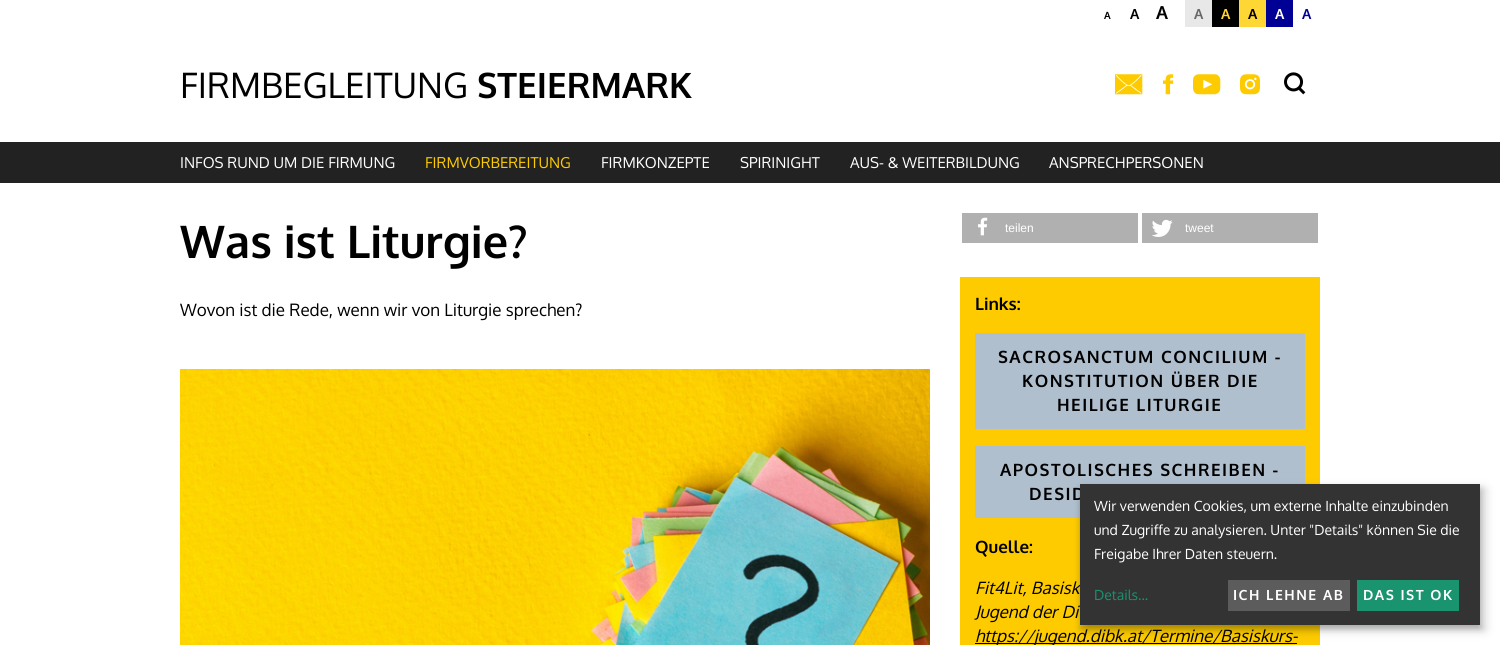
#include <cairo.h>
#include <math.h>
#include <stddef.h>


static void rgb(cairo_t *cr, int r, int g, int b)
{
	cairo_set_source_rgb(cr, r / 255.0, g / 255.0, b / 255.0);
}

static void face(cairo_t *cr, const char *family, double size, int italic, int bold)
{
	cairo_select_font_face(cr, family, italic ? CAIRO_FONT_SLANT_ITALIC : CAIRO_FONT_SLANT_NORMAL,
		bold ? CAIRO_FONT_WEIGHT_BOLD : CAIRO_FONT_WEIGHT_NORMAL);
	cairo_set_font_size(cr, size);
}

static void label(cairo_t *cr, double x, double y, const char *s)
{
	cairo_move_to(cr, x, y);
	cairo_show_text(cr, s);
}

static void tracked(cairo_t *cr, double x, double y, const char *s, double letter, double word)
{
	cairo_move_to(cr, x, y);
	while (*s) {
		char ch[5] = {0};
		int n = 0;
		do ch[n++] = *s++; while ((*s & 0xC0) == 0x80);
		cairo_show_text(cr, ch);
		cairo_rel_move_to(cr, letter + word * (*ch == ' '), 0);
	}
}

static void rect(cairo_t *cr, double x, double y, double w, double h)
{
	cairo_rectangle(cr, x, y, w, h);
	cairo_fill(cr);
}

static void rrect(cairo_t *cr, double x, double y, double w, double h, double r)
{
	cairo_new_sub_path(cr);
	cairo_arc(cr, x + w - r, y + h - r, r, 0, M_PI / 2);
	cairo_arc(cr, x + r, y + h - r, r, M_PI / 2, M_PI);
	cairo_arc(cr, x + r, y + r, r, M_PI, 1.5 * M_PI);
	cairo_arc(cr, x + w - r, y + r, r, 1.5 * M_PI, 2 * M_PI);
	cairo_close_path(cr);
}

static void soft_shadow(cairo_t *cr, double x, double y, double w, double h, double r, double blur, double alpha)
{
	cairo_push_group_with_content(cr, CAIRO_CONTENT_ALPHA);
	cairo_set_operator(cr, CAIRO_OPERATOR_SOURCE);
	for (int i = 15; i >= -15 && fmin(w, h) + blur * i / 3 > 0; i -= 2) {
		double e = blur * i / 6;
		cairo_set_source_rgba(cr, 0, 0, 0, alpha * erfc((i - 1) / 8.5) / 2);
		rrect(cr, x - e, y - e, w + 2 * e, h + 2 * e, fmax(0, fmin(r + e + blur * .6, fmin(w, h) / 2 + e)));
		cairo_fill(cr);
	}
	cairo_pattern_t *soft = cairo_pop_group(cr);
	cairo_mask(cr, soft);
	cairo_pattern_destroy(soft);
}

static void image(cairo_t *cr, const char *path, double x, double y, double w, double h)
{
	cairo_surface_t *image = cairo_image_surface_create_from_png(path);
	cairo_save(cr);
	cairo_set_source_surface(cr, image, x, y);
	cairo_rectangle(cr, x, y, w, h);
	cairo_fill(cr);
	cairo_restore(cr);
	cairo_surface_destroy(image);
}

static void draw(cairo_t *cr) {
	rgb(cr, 255, 255, 255);
	cairo_paint(cr);
	face(cr, "Oxygen", 10, 0, 1);
	rgb(cr, 0, 0, 0);
	label(cr, 1104, 19, "A");
	face(cr, "Oxygen", 14, 0, 1);
	label(cr, 1130, 19, "A");
	face(cr, "Oxygen", 18, 0, 1);
	label(cr, 1156, 19, "A");
	rgb(cr, 232, 232, 232);
	rect(cr, 1185, 0, 27, 27);
	face(cr, "Oxygen", 14, 0, 1);
	rgb(cr, 103, 103, 103);
	label(cr, 1194, 19, "A");
	rgb(cr, 0, 0, 0);
	rect(cr, 1212, 0, 27, 27);
	rgb(cr, 255, 215, 53);
	label(cr, 1221, 19, "A");
	rect(cr, 1239, 0, 27, 27);
	rgb(cr, 0, 0, 0);
	label(cr, 1248, 19, "A");
	rgb(cr, 0, 0, 148);
	rect(cr, 1266, 0, 27, 27);
	rgb(cr, 255, 255, 255);
	label(cr, 1275, 19, "A");
	rgb(cr, 0, 0, 148);
	label(cr, 1302, 19, "A");
	face(cr, "Oxygen", 35, 0, 0);
	rgb(cr, 0, 0, 0);
	label(cr, 180, 98, "FIRMBEGLEITUNG");
	face(cr, "Oxygen", 35, 0, 1);
	label(cr, 477, 98, "STEIERMARK");
	image(cr, "image0.png", 1115, 74, 28, 21);
	image(cr, "image1.png", 1163, 74, 11, 21);
	image(cr, "image2.png", 1193, 74, 28, 21);
	image(cr, "image3.png", 1240, 74, 20, 21);
	image(cr, "image4.png", 1284, 72, 22, 23);
	rgb(cr, 34, 34, 34);
	rect(cr, 0, 142, 1500, 41);
	face(cr, "Oxygen", 15, 0, 0);
	rgb(cr, 255, 255, 255);
	label(cr, 180, 168, "INFOS RUND UM DIE FIRMUNG");
	rgb(cr, 253, 203, 0);
	label(cr, 425, 168, "FIRMVORBEREITUNG");
	rgb(cr, 255, 255, 255);
	label(cr, 601, 168, "FIRMKONZEPTE");
	label(cr, 740, 168, "SPIRINIGHT");
	label(cr, 850, 168, "AUS- & WEITERBILDUNG");
	label(cr, 1049, 168, "ANSPRECHPERSONEN");
	face(cr, "Oxygen", 45, 0, 1);
	rgb(cr, 0, 0, 0);
	label(cr, 180, 258, "Was ist Liturgie?");
	face(cr, "Oxygen", 17, 0, 0);
	label(cr, 180, 316, "Wovon ist die Rede, wenn wir von Liturgie sprechen?");
	image(cr, "image5.png", 180, 369, 750, 276);
	rgb(cr, 176, 176, 176);
	rect(cr, 962, 213, 176, 30);
	image(cr, "image6.png", 978, 217, 10, 19);
	face(cr, "Liberation Sans", 12, 0, 0);
	rgb(cr, 255, 255, 255);
	label(cr, 1005, 232, "teilen");
	rgb(cr, 176, 176, 176);
	rect(cr, 1142, 213, 176, 30);
	image(cr, "image7.png", 1152, 219, 21, 18);
	rgb(cr, 255, 255, 255);
	label(cr, 1185, 232, "tweet");
	rgb(cr, 253, 203, 0);
	rect(cr, 960, 277, 360, 368);
	face(cr, "Oxygen", 17, 0, 1);
	rgb(cr, 0, 0, 0);
	label(cr, 975, 310, "Links:");
	rgb(cr, 176, 191, 206);
	rect(cr, 975, 333, 330, 96);
	rgb(cr, 0, 0, 0);
	tracked(cr, 998, 363, "SACROSANCTUM CONCILIUM -", 1.5, 0);
	tracked(cr, 1022, 387, "KONSTITUTION ÜBER DIE", 1.5, 0);
	tracked(cr, 1057, 411, "HEILIGE LITURGIE", 1.5, 0);
	rgb(cr, 176, 191, 206);
	rect(cr, 975, 446, 330, 72);
	rgb(cr, 0, 0, 0);
	tracked(cr, 1000, 476, "APOSTOLISCHES SCHREIBEN -", 1.5, 0);
	tracked(cr, 1029, 500, "DESID", 1.5, 0);
	label(cr, 975, 553, "Quelle:");
	face(cr, "Oxygen", 17, 1, 0);
	label(cr, 975, 594, "Fit4Lit, Basisk");
	label(cr, 975, 618, "Jugend der Di");
	rect(cr, 975, 643, 322, 1);
	label(cr, 975, 642, "https://jugend.dibk.at/Termine/Basiskurs-");
	rgb(cr, 0, 0, 0);
	soft_shadow(cr, 1085, 489, 400, 141, 0, 5, 0.19);
	soft_shadow(cr, 1080, 488, 400, 141, 0, 3, 0.2);
	rgb(cr, 51, 51, 51);
	rect(cr, 1080, 484, 400, 141);
	face(cr, "Oxygen", 14, 0, 0);
	rgb(cr, 255, 255, 255);
	label(cr, 1094, 511, "Wir verwenden Cookies, um externe Inhalte einzubinden");
	label(cr, 1094, 535, "und Zugriffe zu analysieren. Unter \"Details\" können Sie die");
	label(cr, 1094, 559, "Freigabe Ihrer Daten steuern.");
	rgb(cr, 26, 147, 111);
	label(cr, 1094, 600, "Details...");
	rgb(cr, 92, 92, 92);
	rect(cr, 1228, 580, 122, 31);
	face(cr, "Oxygen", 14, 0, 1);
	rgb(cr, 255, 255, 255);
	tracked(cr, 1233, 600, "ICH LEHNE AB", 1.5, 0);
	rgb(cr, 26, 147, 111);
	rect(cr, 1357, 580, 102, 31);
	rgb(cr, 255, 255, 255);
	tracked(cr, 1363, 600, "DAS IST OK", 1.5, 0);
}

int main(void) {
	cairo_surface_t *surface = cairo_image_surface_create(CAIRO_FORMAT_RGB24, 1500, 645);
	cairo_t *cr = cairo_create(surface);
	cairo_font_options_t *options = cairo_font_options_create();
	cairo_font_options_set_hint_metrics(options, CAIRO_HINT_METRICS_OFF);
	cairo_font_options_set_hint_style(options, CAIRO_HINT_STYLE_NONE);
	cairo_set_font_options(cr, options);
	cairo_set_miter_limit(cr, 4);
	draw(cr);
	cairo_surface_write_to_png(surface, "render.png");
	cairo_font_options_destroy(options);
	cairo_destroy(cr);
	cairo_surface_destroy(surface);
	return 0;
}
